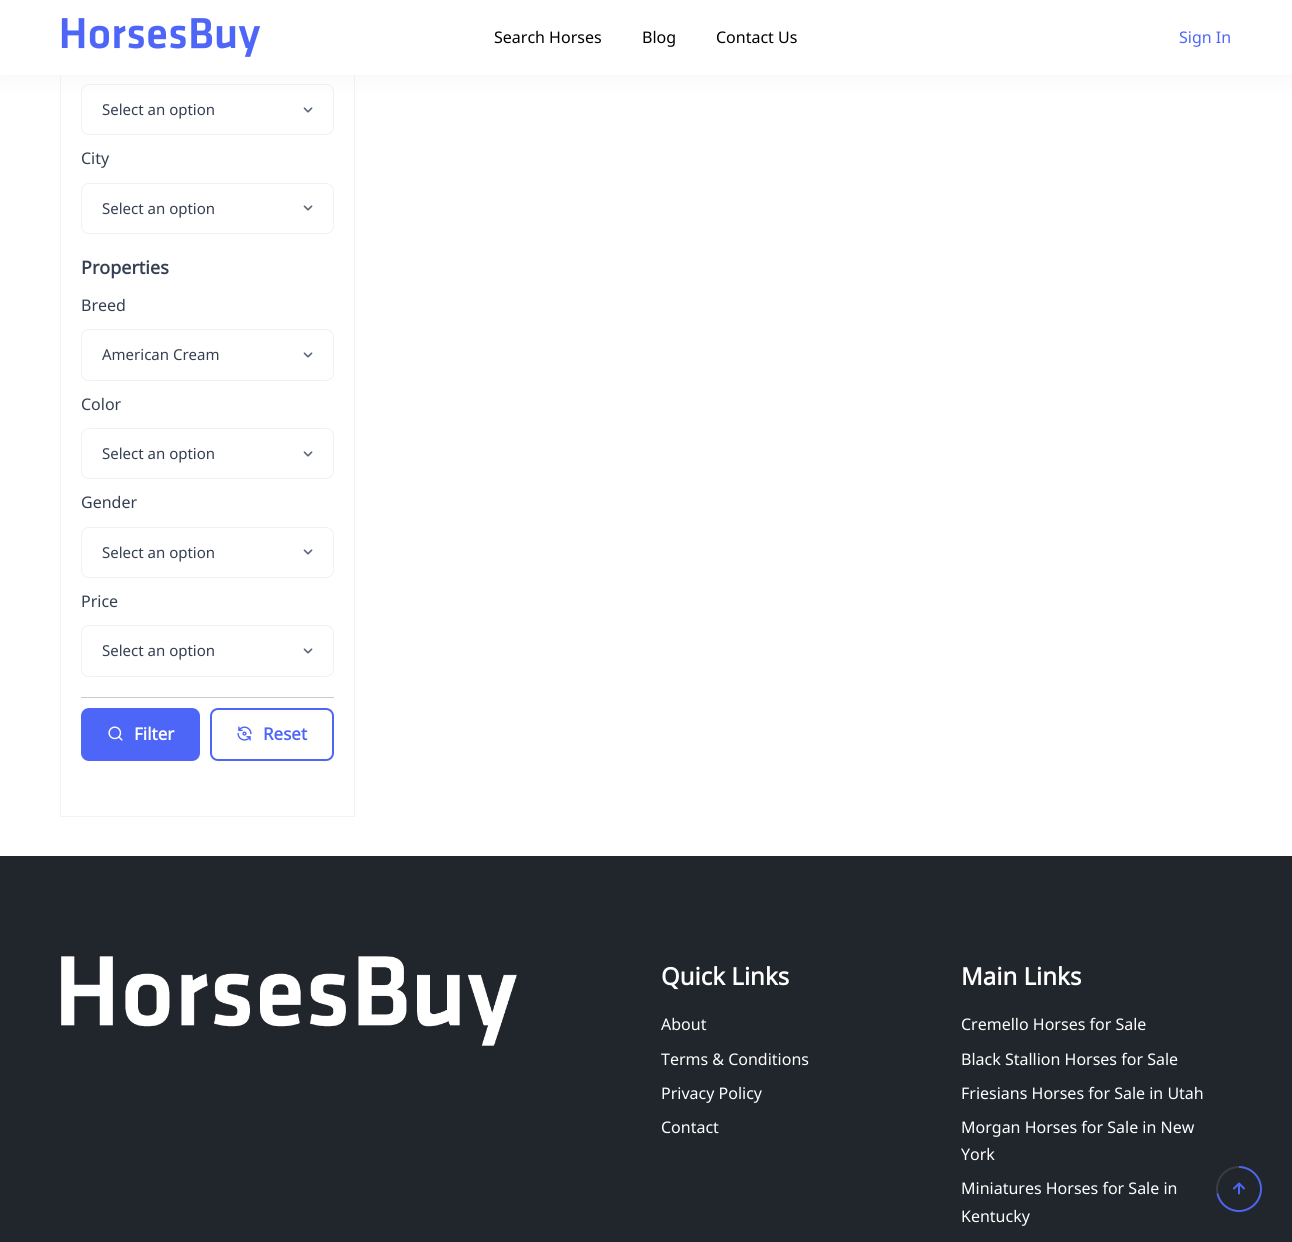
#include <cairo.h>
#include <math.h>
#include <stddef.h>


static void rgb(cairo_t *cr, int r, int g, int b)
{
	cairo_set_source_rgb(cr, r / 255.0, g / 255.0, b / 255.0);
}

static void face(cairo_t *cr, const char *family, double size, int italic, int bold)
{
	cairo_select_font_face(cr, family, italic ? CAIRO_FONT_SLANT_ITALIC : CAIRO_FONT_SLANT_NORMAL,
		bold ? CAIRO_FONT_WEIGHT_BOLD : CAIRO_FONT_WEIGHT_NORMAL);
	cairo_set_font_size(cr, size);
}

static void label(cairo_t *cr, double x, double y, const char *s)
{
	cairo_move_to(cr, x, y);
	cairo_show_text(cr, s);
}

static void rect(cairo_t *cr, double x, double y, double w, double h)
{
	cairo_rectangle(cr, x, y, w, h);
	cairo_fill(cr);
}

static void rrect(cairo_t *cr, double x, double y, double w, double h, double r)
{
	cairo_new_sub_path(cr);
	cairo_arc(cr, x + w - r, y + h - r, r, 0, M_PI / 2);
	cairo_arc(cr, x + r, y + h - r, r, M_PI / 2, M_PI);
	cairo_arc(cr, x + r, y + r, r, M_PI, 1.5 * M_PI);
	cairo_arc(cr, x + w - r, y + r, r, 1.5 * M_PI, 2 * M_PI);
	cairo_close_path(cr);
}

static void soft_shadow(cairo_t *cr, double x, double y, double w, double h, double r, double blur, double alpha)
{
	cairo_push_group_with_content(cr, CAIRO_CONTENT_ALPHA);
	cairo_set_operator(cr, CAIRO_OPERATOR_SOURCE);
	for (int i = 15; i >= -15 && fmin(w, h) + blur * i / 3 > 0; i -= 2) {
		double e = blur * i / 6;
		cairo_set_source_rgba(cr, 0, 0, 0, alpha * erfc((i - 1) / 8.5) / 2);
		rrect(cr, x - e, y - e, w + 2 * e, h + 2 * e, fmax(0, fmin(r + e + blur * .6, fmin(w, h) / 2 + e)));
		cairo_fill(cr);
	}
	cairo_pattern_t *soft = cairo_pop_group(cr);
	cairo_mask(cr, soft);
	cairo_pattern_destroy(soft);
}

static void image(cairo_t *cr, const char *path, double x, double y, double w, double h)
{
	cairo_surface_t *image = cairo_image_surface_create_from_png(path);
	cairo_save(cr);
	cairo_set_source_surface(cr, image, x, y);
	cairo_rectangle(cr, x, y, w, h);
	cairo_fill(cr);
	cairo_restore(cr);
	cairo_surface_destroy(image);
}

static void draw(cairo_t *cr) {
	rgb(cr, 255, 255, 255);
	cairo_paint(cr);
	cairo_rectangle(cr, 60.5, -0.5, 294, 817);
	cairo_set_source_rgba(cr, 0.031, 0.235, 0.51, 0.06);
	cairo_set_line_width(cr, 1);
	cairo_stroke(cr);
	rgb(cr, 255, 255, 255);
	rrect(cr, 61, -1, 293, 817, 8);
	cairo_fill(cr);
	image(cr, "image1.png", 303, 107, 10, 6);
	rrect(cr, 81.5, 84.5, 252, 50, 7.5);
	rgb(cr, 238, 241, 246);
	cairo_stroke(cr);
	rgb(cr, 30, 34, 40);
	soft_shadow(cr, 0, 0, 1292, 75, 0, 12.5, 0.06);
	rgb(cr, 255, 255, 255);
	rect(cr, 0, 0, 1292, 75);
	image(cr, "image0.png", 61, 18, 200, 39);
	face(cr, "Noto Sans", 16, 0, 0);
	rgb(cr, 0, 0, 0);
	label(cr, 494, 43, "Search Horses");
	label(cr, 642, 43, "Blog");
	label(cr, 716, 43, "Contact Us");
	rgb(cr, 78, 102, 248);
	label(cr, 1179, 43, "Sign In");
	face(cr, "Noto Sans", 15, 0, 0);
	rgb(cr, 52, 63, 82);
	label(cr, 102, 115, "Select an option");
	face(cr, "Noto Sans", 16, 0, 0);
	label(cr, 81, 164, "City");
	image(cr, "image1.png", 303, 205, 10, 6);
	rrect(cr, 81.5, 183.5, 252, 50, 7.5);
	rgb(cr, 238, 241, 246);
	cairo_stroke(cr);
	face(cr, "Noto Sans", 15, 0, 0);
	rgb(cr, 52, 63, 82);
	label(cr, 102, 214, "Select an option");
	face(cr, "Noto Sans", 18, 0, 1);
	label(cr, 81, 274, "Properties");
	face(cr, "Noto Sans", 16, 0, 0);
	label(cr, 81, 311, "Breed");
	image(cr, "image1.png", 303, 352, 10, 6);
	rrect(cr, 81.5, 329.5, 252, 51, 7.5);
	rgb(cr, 238, 241, 246);
	cairo_stroke(cr);
	face(cr, "Noto Sans", 15, 0, 0);
	rgb(cr, 52, 63, 82);
	label(cr, 102, 360, "American Cream");
	face(cr, "Noto Sans", 16, 0, 0);
	label(cr, 81, 410, "Color");
	image(cr, "image1.png", 303, 451, 10, 6);
	rrect(cr, 81.5, 428.5, 252, 50, 7.5);
	rgb(cr, 238, 241, 246);
	cairo_stroke(cr);
	face(cr, "Noto Sans", 15, 0, 0);
	rgb(cr, 52, 63, 82);
	label(cr, 102, 459, "Select an option");
	face(cr, "Noto Sans", 16, 0, 0);
	label(cr, 81, 508, "Gender");
	image(cr, "image1.png", 303, 549, 10, 6);
	rrect(cr, 81.5, 527.5, 252, 50, 7.5);
	rgb(cr, 238, 241, 246);
	cairo_stroke(cr);
	face(cr, "Noto Sans", 15, 0, 0);
	rgb(cr, 52, 63, 82);
	label(cr, 102, 558, "Select an option");
	face(cr, "Noto Sans", 16, 0, 0);
	label(cr, 81, 607, "Price");
	image(cr, "image1.png", 303, 648, 10, 6);
	rrect(cr, 81.5, 625.5, 252, 51, 7.5);
	rgb(cr, 238, 241, 246);
	cairo_stroke(cr);
	face(cr, "Noto Sans", 15, 0, 0);
	rgb(cr, 52, 63, 82);
	label(cr, 102, 656, "Select an option");
	rgb(cr, 202, 202, 202);
	rect(cr, 81, 697, 253, 1);
	rgb(cr, 78, 102, 248);
	rrect(cr, 82, 709, 117, 51, 7);
	cairo_fill_preserve(cr);
	cairo_set_line_width(cr, 2);
	cairo_stroke(cr);
	image(cr, "image2.png", 108, 726, 15, 15);
	face(cr, "Noto Sans", 17, 0, 1);
	rgb(cr, 255, 255, 255);
	label(cr, 134, 740, "Filter");
	rrect(cr, 211, 709, 122, 51, 7);
	rgb(cr, 78, 102, 248);
	cairo_stroke(cr);
	image(cr, "image3.png", 237, 726, 15, 15);
	label(cr, 263, 740, "Reset");
	rgb(cr, 33, 38, 44);
	rect(cr, 0, 856, 1292, 386);
	image(cr, "image4.png", 61, 956, 456, 90);
	face(cr, "Noto Sans", 24, 0, 1);
	rgb(cr, 255, 255, 255);
	label(cr, 661, 985, "Quick Links");
	face(cr, "Noto Sans", 16, 0, 0);
	label(cr, 661, 1030, "About");
	label(cr, 661, 1065, "Terms & Conditions");
	label(cr, 661, 1099, "Privacy Policy");
	label(cr, 661, 1133, "Contact");
	face(cr, "Noto Sans", 24, 0, 1);
	label(cr, 961, 985, "Main Links");
	face(cr, "Noto Sans", 16, 0, 0);
	label(cr, 961, 1030, "Cremello Horses for Sale");
	label(cr, 961, 1065, "Black Stallion Horses for Sale");
	label(cr, 961, 1099, "Friesians Horses for Sale in Utah");
	label(cr, 961, 1133, "Morgan Horses for Sale in New");
	label(cr, 961, 1160, "York");
	label(cr, 961, 1194, "Miniatures Horses for Sale in");
	label(cr, 961, 1222, "Kentucky");
	cairo_new_path(cr);
	cairo_arc(cr, 1239, 1189, 22, 0, 2 * M_PI);
	rgb(cr, 57, 61, 67);
	cairo_stroke(cr);
	cairo_new_path(cr);
	cairo_move_to(cr, 1239, 1167);
	cairo_curve_to(cr, 1251, 1167, 1261, 1177, 1261, 1189);
	cairo_curve_to(cr, 1261, 1201, 1251, 1211, 1239, 1211);
	cairo_curve_to(cr, 1228.5, 1211, 1219.5, 1203.5, 1217.5, 1193.5);
	rgb(cr, 78, 102, 248);
	cairo_set_line_width(cr, 1.8);
	cairo_stroke(cr);
	image(cr, "image5.png", 1233, 1182, 12, 13);
}

int main(void) {
	cairo_surface_t *surface = cairo_image_surface_create(CAIRO_FORMAT_RGB24, 1292, 1242);
	cairo_t *cr = cairo_create(surface);
	cairo_font_options_t *options = cairo_font_options_create();
	cairo_font_options_set_hint_metrics(options, CAIRO_HINT_METRICS_OFF);
	cairo_font_options_set_hint_style(options, CAIRO_HINT_STYLE_NONE);
	cairo_set_font_options(cr, options);
	cairo_set_miter_limit(cr, 4);
	draw(cr);
	cairo_surface_write_to_png(surface, "render.png");
	cairo_font_options_destroy(options);
	cairo_destroy(cr);
	cairo_surface_destroy(surface);
	return 0;
}
